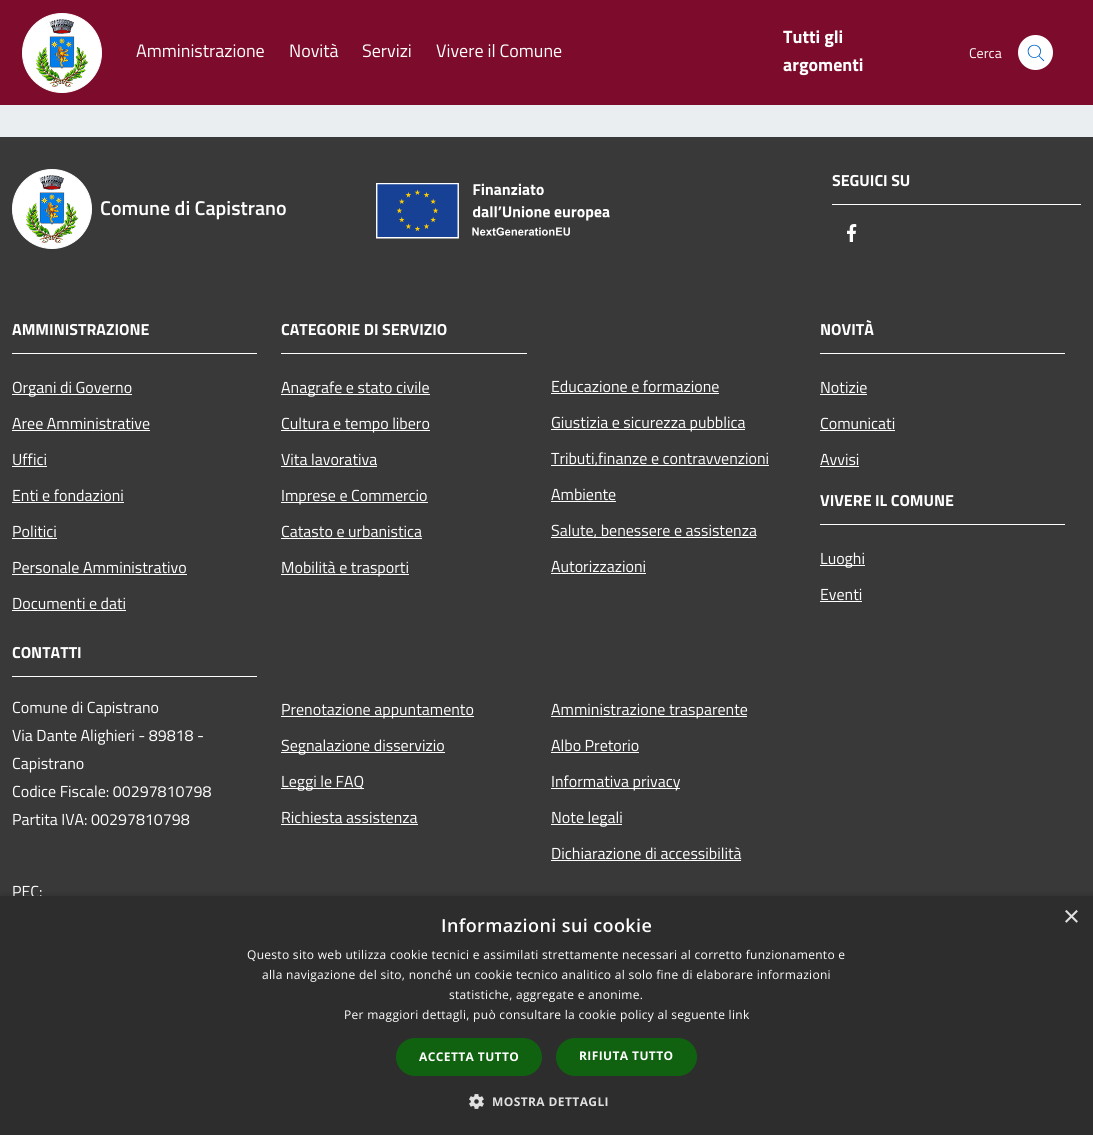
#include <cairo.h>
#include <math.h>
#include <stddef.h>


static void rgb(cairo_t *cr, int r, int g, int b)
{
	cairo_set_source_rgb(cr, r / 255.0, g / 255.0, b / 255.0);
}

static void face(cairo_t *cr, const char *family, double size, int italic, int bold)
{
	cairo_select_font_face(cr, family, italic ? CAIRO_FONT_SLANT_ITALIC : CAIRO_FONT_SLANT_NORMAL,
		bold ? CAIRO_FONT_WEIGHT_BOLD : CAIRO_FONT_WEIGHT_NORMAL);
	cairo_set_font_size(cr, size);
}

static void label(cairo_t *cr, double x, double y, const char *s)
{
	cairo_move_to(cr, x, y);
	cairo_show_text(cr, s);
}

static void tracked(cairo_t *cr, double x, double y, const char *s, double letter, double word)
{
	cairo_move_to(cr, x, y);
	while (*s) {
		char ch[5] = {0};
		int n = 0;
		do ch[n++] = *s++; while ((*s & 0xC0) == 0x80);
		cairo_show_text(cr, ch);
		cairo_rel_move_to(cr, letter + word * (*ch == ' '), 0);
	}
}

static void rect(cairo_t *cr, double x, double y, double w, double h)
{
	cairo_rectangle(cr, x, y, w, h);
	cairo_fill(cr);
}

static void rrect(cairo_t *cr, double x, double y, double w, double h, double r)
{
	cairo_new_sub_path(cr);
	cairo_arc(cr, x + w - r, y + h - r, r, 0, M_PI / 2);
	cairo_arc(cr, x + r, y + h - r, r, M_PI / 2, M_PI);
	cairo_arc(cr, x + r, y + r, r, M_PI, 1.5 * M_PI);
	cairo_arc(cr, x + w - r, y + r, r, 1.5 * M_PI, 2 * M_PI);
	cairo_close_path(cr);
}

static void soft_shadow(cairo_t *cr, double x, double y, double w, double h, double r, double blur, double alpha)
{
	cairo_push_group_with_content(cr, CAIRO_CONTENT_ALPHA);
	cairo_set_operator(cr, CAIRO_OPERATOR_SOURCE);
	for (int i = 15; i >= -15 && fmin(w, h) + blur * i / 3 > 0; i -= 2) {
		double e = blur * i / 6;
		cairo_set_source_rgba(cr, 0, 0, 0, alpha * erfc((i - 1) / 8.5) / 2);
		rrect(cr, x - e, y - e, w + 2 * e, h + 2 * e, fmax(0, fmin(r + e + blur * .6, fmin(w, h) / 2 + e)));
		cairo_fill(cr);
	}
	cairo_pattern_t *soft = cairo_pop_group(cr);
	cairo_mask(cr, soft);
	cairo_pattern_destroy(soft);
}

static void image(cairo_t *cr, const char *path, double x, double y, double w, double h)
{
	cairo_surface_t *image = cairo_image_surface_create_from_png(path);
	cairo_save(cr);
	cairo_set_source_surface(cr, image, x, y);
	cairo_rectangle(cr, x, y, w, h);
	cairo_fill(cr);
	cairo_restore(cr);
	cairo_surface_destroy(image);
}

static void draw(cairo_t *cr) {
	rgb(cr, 235, 238, 240);
	cairo_paint(cr);
	rgb(cr, 125, 11, 43);
	rect(cr, 0, 0, 1093, 105);
	rgb(cr, 255, 255, 255);
	cairo_arc(cr, 62, 53, 39.5, 0, 2 * M_PI);
	cairo_fill_preserve(cr);
	cairo_set_line_width(cr, 1);
	cairo_stroke(cr);
	image(cr, "image0.png", 36, 19, 53, 68);
	face(cr, "Titillium Web", 18, 0, 0);
	label(cr, 136, 57, "Amministrazione");
	label(cr, 289, 57, "Novità");
	label(cr, 362, 57, "Servizi");
	label(cr, 436, 57, "Vivere il Comune");
	face(cr, "Titillium Web", 18, 0, 1);
	label(cr, 783, 43, "Tutti gli");
	label(cr, 783, 71, "argomenti");
	face(cr, "Titillium Web", 14, 0, 0);
	label(cr, 969, 58, "Cerca");
	cairo_new_path(cr);
	cairo_arc(cr, 1035.5, 52.5, 17.5, 0, 2 * M_PI);
	cairo_fill(cr);
	image(cr, "image1.png", 1027, 44, 18, 18);
	rgb(cr, 57, 57, 57);
	rect(cr, 0, 137, 1093, 759);
	rgb(cr, 255, 255, 255);
	rect(cr, 832, 204, 249, 1);
	face(cr, "Titillium Web", 16, 0, 1);
	label(cr, 832, 186, "SEGUICI SU");
	image(cr, "image2.png", 847, 224, 10, 18);
	cairo_arc(cr, 52, 209, 39.5, 0, 2 * M_PI);
	cairo_fill_preserve(cr);
	cairo_stroke(cr);
	image(cr, "image3.png", 26, 175, 53, 68);
	face(cr, "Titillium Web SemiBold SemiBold", 20, 0, 0);
	label(cr, 100, 215, "Comune di Capistrano");
	image(cr, "image4.png", 376, 183, 234, 56);
	rect(cr, 12, 353, 245, 1);
	face(cr, "Titillium Web", 16, 0, 1);
	label(cr, 12, 335, "AMMINISTRAZIONE");
	rect(cr, 12, 394, 120, 1);
	face(cr, "Titillium Web", 16, 0, 0);
	label(cr, 12, 393, "Organi di Governo");
	label(cr, 12, 429, "Aree Amministrative");
	rect(cr, 12, 430, 138, 1);
	label(cr, 12, 465, "Uffici");
	rect(cr, 12, 466, 35, 1);
	label(cr, 12, 501, "Enti e fondazioni");
	rect(cr, 12, 502, 112, 1);
	label(cr, 12, 537, "Politici");
	rect(cr, 12, 538, 45, 1);
	label(cr, 12, 573, "Personale Amministrativo");
	rect(cr, 12, 574, 175, 1);
	label(cr, 12, 609, "Documenti e dati");
	rect(cr, 12, 610, 114, 1);
	rect(cr, 281, 353, 246, 1);
	face(cr, "Titillium Web", 16, 0, 1);
	label(cr, 281, 335, "CATEGORIE DI SERVIZIO");
	rect(cr, 281, 394, 149, 1);
	face(cr, "Titillium Web", 16, 0, 0);
	label(cr, 281, 393, "Anagrafe e stato civile");
	rect(cr, 281, 430, 149, 1);
	label(cr, 281, 429, "Cultura e tempo libero");
	label(cr, 281, 465, "Vita lavorativa");
	rect(cr, 281, 466, 96, 1);
	rect(cr, 281, 502, 147, 1);
	label(cr, 281, 501, "Imprese e Commercio");
	label(cr, 281, 537, "Catasto e urbanistica");
	rect(cr, 281, 538, 141, 1);
	rect(cr, 281, 574, 128, 1);
	label(cr, 281, 573, "Mobilità e trasporti");
	label(cr, 551, 392, "Educazione e formazione");
	rect(cr, 551, 393, 168, 1);
	rect(cr, 551, 429, 194, 1);
	label(cr, 551, 428, "Giustizia e sicurezza pubblica");
	rect(cr, 551, 465, 218, 1);
	label(cr, 551, 464, "Tributi,finanze e contravvenzioni");
	label(cr, 551, 500, "Ambiente");
	rect(cr, 551, 501, 65, 1);
	rect(cr, 551, 537, 205, 1);
	label(cr, 551, 536, "Salute, benessere e assistenza");
	label(cr, 551, 572, "Autorizzazioni");
	rect(cr, 551, 573, 95, 1);
	rect(cr, 820, 353, 245, 1);
	face(cr, "Titillium Web", 16, 0, 1);
	label(cr, 820, 335, "NOVITÀ");
	face(cr, "Titillium Web", 16, 0, 0);
	label(cr, 820, 393, "Notizie");
	rect(cr, 820, 394, 47, 1);
	label(cr, 820, 429, "Comunicati");
	rect(cr, 820, 430, 75, 1);
	label(cr, 820, 465, "Avvisi");
	rect(cr, 820, 466, 39, 1);
	rect(cr, 820, 524, 245, 1);
	face(cr, "Titillium Web", 16, 0, 1);
	label(cr, 820, 506, "VIVERE IL COMUNE");
	rect(cr, 820, 565, 45, 1);
	face(cr, "Titillium Web", 16, 0, 0);
	label(cr, 820, 564, "Luoghi");
	label(cr, 820, 600, "Eventi");
	rect(cr, 820, 601, 42, 1);
	rect(cr, 12, 676, 245, 1);
	face(cr, "Titillium Web", 16, 0, 1);
	label(cr, 12, 658, "CONTATTI");
	face(cr, "Titillium Web", 16, 0, 0);
	label(cr, 12, 713, "Comune di Capistrano");
	label(cr, 12, 741, "Via Dante Alighieri - 89818 -");
	label(cr, 12, 769, "Capistrano");
	label(cr, 12, 797, "Codice Fiscale: 00297810798");
	label(cr, 12, 825, "Partita IVA: 00297810798");
	label(cr, 12, 897, "PEC:");
	rect(cr, 281, 716, 193, 1);
	label(cr, 281, 715, "Prenotazione appuntamento");
	rect(cr, 281, 752, 164, 1);
	label(cr, 281, 751, "Segnalazione disservizio");
	rect(cr, 281, 788, 83, 1);
	label(cr, 281, 787, "Leggi le FAQ");
	label(cr, 281, 823, "Richiesta assistenza");
	rect(cr, 281, 824, 137, 1);
	rect(cr, 551, 716, 196, 1);
	label(cr, 551, 715, "Amministrazione trasparente");
	label(cr, 551, 751, "Albo Pretorio");
	rect(cr, 551, 752, 88, 1);
	rect(cr, 551, 788, 129, 1);
	label(cr, 551, 787, "Informativa privacy");
	rect(cr, 551, 824, 71, 1);
	label(cr, 551, 823, "Note legali");
	label(cr, 551, 859, "Dichiarazione di accessibilità");
	rect(cr, 551, 860, 190, 1);
	rgb(cr, 0, 0, 0);
	soft_shadow(cr, 1, 898, 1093, 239, 0, 4, 0.35);
	rgb(cr, 45, 45, 45);
	rect(cr, 0, 896, 1093, 239);
	face(cr, "Liberation Sans", 29, 0, 0);
	rgb(cr, 224, 224, 224);
	label(cr, 1063, 926, "×");
	face(cr, "Open Sans SemiBold", 18, 0, 0);
	rgb(cr, 255, 255, 255);
	tracked(cr, 441, 932, "Informazioni sui cookie", 0.4, 0);
	face(cr, "Open Sans", 12, 0, 0);
	tracked(cr, 247, 959, "Questo sito web utilizza cookie tecnici e assimilati strettamente necessari al corretto funzionamento e", 0.3, 0);
	tracked(cr, 262, 979, "alla navigazione del sito, nonché un cookie tecnico analitico al solo fine di elaborare informazioni", 0.3, 0);
	tracked(cr, 449, 999, "statistiche, aggregate e anonime.", 0.3, 0);
	tracked(cr, 344, 1019, "Per maggiori dettagli, può consultare la cookie policy al seguente link", 0.3, 0);
	rgb(cr, 16, 97, 16);
	rrect(cr, 396, 1038, 146, 38, 19);
	cairo_fill(cr);
	face(cr, "Open Sans", 12, 0, 1);
	rgb(cr, 255, 255, 255);
	tracked(cr, 419, 1061, "ACCETTA TUTTO", 0.4, 0);
	rgb(cr, 16, 97, 16);
	rrect(cr, 556, 1038, 141, 38, 19);
	cairo_fill(cr);
	rgb(cr, 255, 255, 255);
	tracked(cr, 579, 1060, "RIFIUTA TUTTO", 0.4, 0);
	image(cr, "image5.png", 469, 1094, 15, 15);
	rgb(cr, 224, 224, 224);
	tracked(cr, 492, 1106, "MOSTRA DETTAGLI", 0.4, 0);
}

int main(void) {
	cairo_surface_t *surface = cairo_image_surface_create(CAIRO_FORMAT_RGB24, 1093, 1135);
	cairo_t *cr = cairo_create(surface);
	cairo_font_options_t *options = cairo_font_options_create();
	cairo_font_options_set_hint_metrics(options, CAIRO_HINT_METRICS_OFF);
	cairo_font_options_set_hint_style(options, CAIRO_HINT_STYLE_NONE);
	cairo_set_font_options(cr, options);
	cairo_set_miter_limit(cr, 4);
	draw(cr);
	cairo_surface_write_to_png(surface, "render.png");
	cairo_font_options_destroy(options);
	cairo_destroy(cr);
	cairo_surface_destroy(surface);
	return 0;
}
